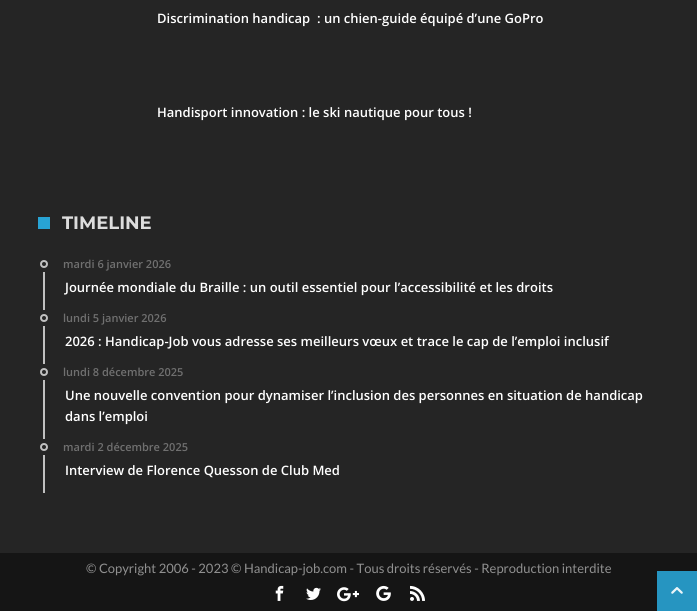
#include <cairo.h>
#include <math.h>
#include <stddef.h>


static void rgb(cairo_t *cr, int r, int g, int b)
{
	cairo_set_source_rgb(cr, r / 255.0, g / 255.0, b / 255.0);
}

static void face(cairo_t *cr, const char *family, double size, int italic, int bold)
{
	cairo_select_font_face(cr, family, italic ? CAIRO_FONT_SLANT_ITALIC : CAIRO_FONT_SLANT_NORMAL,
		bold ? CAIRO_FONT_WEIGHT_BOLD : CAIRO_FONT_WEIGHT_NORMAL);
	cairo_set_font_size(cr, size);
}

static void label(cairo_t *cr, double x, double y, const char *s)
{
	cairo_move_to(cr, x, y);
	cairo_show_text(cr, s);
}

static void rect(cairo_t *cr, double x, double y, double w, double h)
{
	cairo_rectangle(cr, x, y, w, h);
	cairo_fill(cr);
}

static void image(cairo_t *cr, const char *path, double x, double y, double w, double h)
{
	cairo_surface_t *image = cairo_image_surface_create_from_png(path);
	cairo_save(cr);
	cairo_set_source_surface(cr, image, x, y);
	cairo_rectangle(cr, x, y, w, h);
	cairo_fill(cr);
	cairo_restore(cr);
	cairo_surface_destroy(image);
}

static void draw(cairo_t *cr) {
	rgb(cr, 37, 37, 37);
	cairo_paint(cr);
	face(cr, "Open Sans SemiBold", 13, 0, 0);
	rgb(cr, 255, 255, 255);
	label(cr, 157, 23, "Discrimination handicap  : un chien-guide équipé d’une GoPro");
	label(cr, 157, 117, "Handisport innovation : le ski nautique pour tous !");
	rgb(cr, 40, 163, 212);
	rect(cr, 38, 217, 12, 12);
	face(cr, "Montserrat Thin", 18, 0, 0);
	rgb(cr, 221, 221, 221);
	label(cr, 62, 229, "TIMELINE");
	cairo_new_path(cr);
	cairo_arc(cr, 44, 264, 3, 0, 2 * M_PI);
	rgb(cr, 192, 192, 192);
	cairo_stroke(cr);
	face(cr, "Open Sans SemiBold", 11, 0, 0);
	rgb(cr, 112, 112, 112);
	label(cr, 63, 268, "mardi 6 janvier 2026");
	rgb(cr, 192, 192, 192);
	rect(cr, 43, 272, 2, 38);
	face(cr, "Open Sans SemiBold", 13, 0, 0);
	rgb(cr, 255, 255, 255);
	label(cr, 65, 292, "Journée mondiale du Braille : un outil essentiel pour l’accessibilité et les droits");
	cairo_new_path(cr);
	cairo_arc(cr, 44, 318, 3, 0, 2 * M_PI);
	rgb(cr, 192, 192, 192);
	cairo_stroke(cr);
	face(cr, "Open Sans SemiBold", 11, 0, 0);
	rgb(cr, 112, 112, 112);
	label(cr, 63, 322, "lundi 5 janvier 2026");
	rgb(cr, 192, 192, 192);
	rect(cr, 43, 326, 2, 38);
	face(cr, "Open Sans SemiBold", 13, 0, 0);
	rgb(cr, 255, 255, 255);
	label(cr, 65, 346, "2026 : Handicap-Job vous adresse ses meilleurs vœux et trace le cap de l’emploi inclusif");
	cairo_new_path(cr);
	cairo_arc(cr, 44, 372, 3, 0, 2 * M_PI);
	rgb(cr, 192, 192, 192);
	cairo_stroke(cr);
	face(cr, "Open Sans SemiBold", 11, 0, 0);
	rgb(cr, 112, 112, 112);
	label(cr, 63, 376, "lundi 8 décembre 2025");
	rgb(cr, 192, 192, 192);
	rect(cr, 43, 380, 2, 59);
	face(cr, "Open Sans SemiBold", 13, 0, 0);
	rgb(cr, 255, 255, 255);
	label(cr, 65, 400, "Une nouvelle convention pour dynamiser l’inclusion des personnes en situation de handicap");
	label(cr, 65, 421, "dans l’emploi");
	cairo_new_path(cr);
	cairo_arc(cr, 44, 447, 3, 0, 2 * M_PI);
	rgb(cr, 192, 192, 192);
	cairo_stroke(cr);
	face(cr, "Open Sans SemiBold", 11, 0, 0);
	rgb(cr, 112, 112, 112);
	label(cr, 63, 451, "mardi 2 décembre 2025");
	rgb(cr, 192, 192, 192);
	rect(cr, 43, 455, 2, 38);
	face(cr, "Open Sans SemiBold", 13, 0, 0);
	rgb(cr, 255, 255, 255);
	label(cr, 65, 475, "Interview de Florence Quesson de Club Med");
	rgb(cr, 21, 21, 21);
	rect(cr, 0, 553, 697, 58);
	face(cr, "Lato", 13, 0, 0);
	rgb(cr, 144, 144, 144);
	label(cr, 86, 573, "© Copyright 2006 - 2023 © Handicap-job.com - Tous droits réservés - Reproduction interdite");
	image(cr, "image0.png", 275, 585, 9, 16);
	image(cr, "image1.png", 306, 587, 15, 13);
	image(cr, "image2.png", 337, 587, 22, 15);
	image(cr, "image3.png", 376, 585, 15, 16);
	image(cr, "image4.png", 410, 585, 15, 16);
	rgb(cr, 38, 149, 193);
	rect(cr, 657, 571, 40, 40);
	image(cr, "image5.png", 671, 587, 12, 7);
}

int main(void) {
	cairo_surface_t *surface = cairo_image_surface_create(CAIRO_FORMAT_RGB24, 697, 611);
	cairo_t *cr = cairo_create(surface);
	cairo_font_options_t *options = cairo_font_options_create();
	cairo_font_options_set_hint_metrics(options, CAIRO_HINT_METRICS_OFF);
	cairo_font_options_set_hint_style(options, CAIRO_HINT_STYLE_NONE);
	cairo_set_font_options(cr, options);
	cairo_set_miter_limit(cr, 4);
	draw(cr);
	cairo_surface_write_to_png(surface, "render.png");
	cairo_font_options_destroy(options);
	cairo_destroy(cr);
	cairo_surface_destroy(surface);
	return 0;
}
